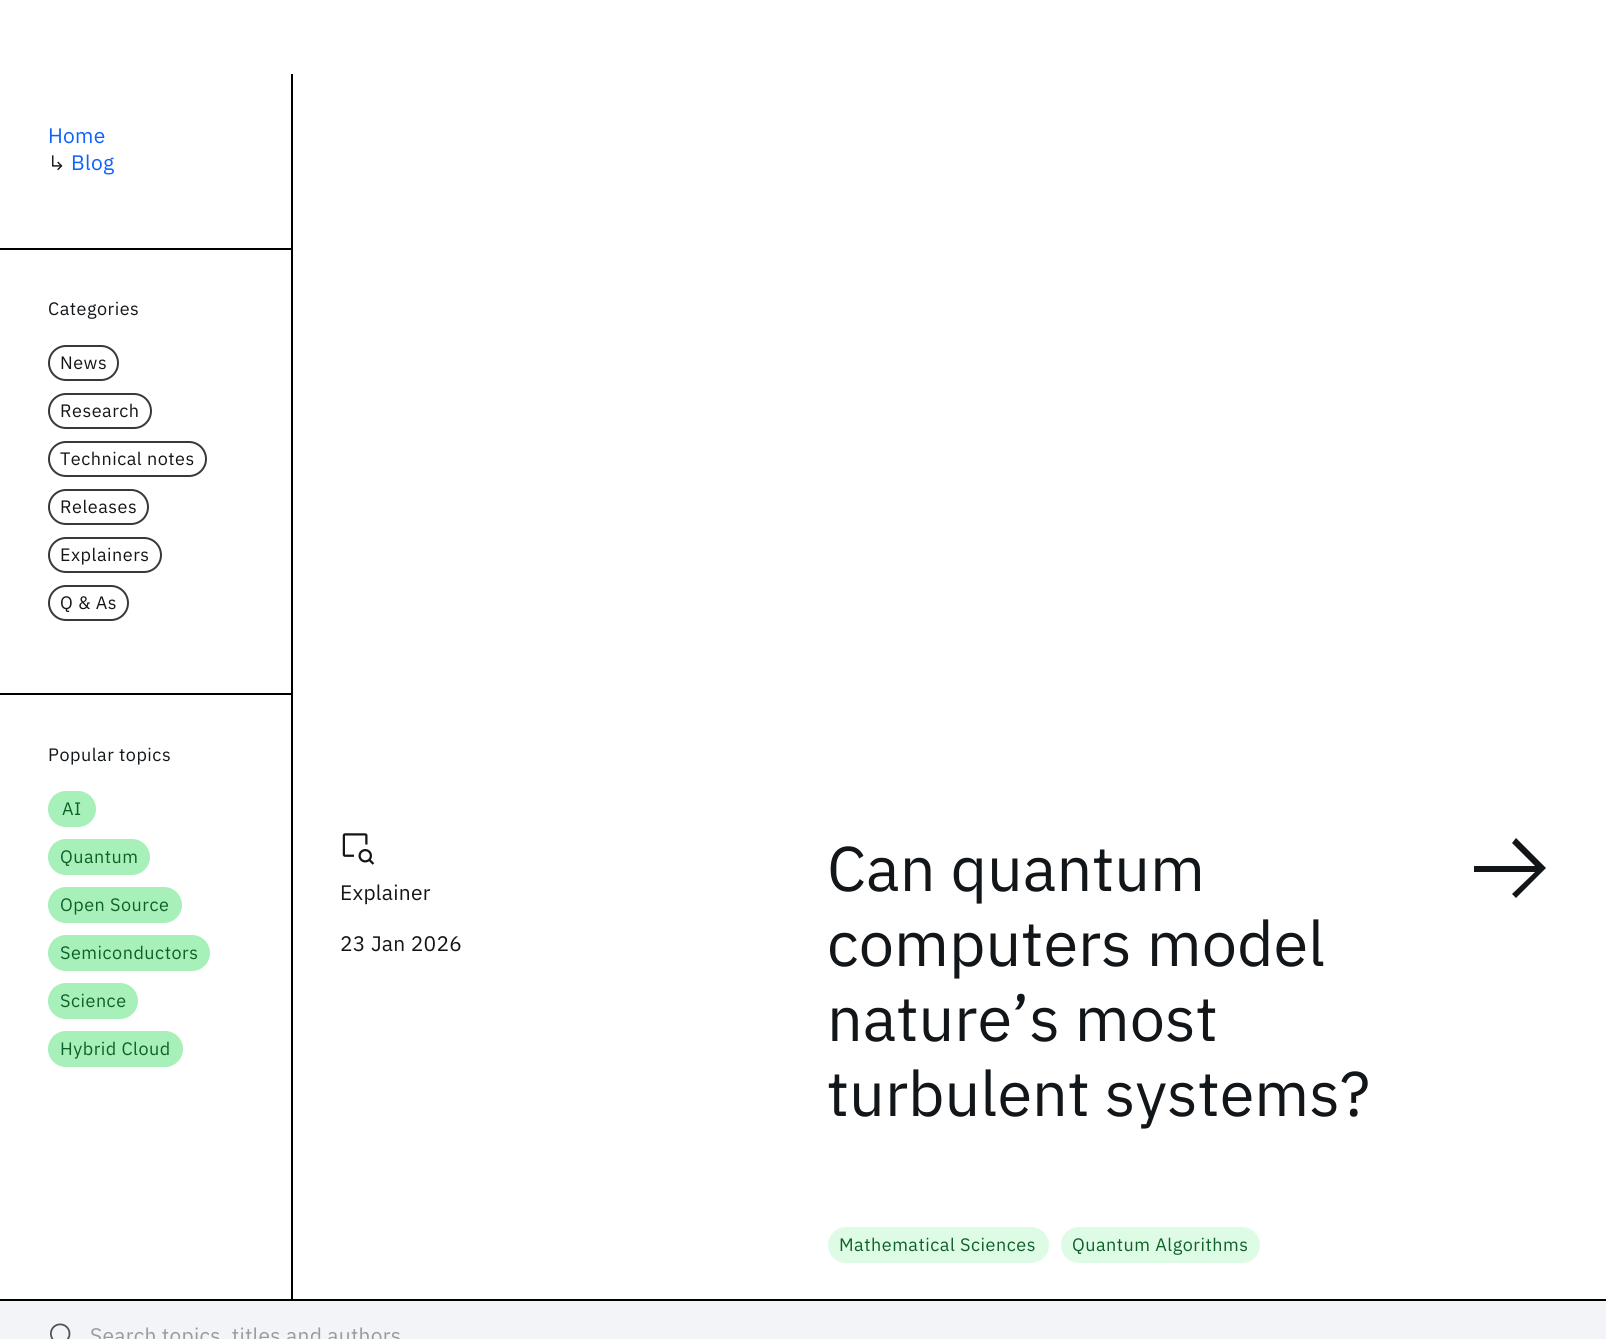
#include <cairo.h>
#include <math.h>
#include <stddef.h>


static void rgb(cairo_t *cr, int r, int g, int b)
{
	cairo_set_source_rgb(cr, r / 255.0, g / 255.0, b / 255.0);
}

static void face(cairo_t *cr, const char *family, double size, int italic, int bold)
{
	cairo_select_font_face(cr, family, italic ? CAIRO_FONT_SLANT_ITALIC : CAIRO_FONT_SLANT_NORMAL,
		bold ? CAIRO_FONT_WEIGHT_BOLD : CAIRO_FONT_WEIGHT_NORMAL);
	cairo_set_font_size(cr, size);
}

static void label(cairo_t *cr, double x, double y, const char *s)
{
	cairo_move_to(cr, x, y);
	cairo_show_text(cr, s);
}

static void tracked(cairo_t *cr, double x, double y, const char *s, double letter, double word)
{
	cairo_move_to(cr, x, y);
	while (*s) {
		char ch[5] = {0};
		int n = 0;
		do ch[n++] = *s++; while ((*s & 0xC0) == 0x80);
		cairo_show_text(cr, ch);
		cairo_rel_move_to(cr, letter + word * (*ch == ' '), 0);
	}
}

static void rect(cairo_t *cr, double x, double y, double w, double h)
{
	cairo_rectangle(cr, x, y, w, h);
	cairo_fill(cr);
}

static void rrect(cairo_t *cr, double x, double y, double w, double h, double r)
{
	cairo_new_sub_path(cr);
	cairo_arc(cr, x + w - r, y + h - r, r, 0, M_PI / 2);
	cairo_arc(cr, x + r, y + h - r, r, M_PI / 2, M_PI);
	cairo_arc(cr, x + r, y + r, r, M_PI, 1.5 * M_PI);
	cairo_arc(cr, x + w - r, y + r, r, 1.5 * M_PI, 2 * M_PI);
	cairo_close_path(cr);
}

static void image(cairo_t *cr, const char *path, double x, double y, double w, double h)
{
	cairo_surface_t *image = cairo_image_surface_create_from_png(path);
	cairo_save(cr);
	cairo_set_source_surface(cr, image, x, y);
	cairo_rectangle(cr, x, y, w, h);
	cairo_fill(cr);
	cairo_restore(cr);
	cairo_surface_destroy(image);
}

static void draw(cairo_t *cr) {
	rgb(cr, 255, 255, 255);
	cairo_paint(cr);
	face(cr, "IBM Plex Sans", 21, 0, 0);
	rgb(cr, 15, 98, 254);
	tracked(cr, 48, 143, "Home", 0.25, 0);
	rgb(cr, 18, 22, 25);
	tracked(cr, 48, 170, "↳", 0.25, 0);
	rgb(cr, 15, 98, 254);
	tracked(cr, 71, 170, "Blog", 0.25, 0);
	rgb(cr, 0, 0, 0);
	rect(cr, 291, 74, 2, 1225);
	rect(cr, 0, 248, 293, 2);
	face(cr, "IBM Plex Sans", 18, 0, 0);
	rgb(cr, 18, 22, 25);
	tracked(cr, 48, 315, "Categories", 0.5, 0);
	rrect(cr, 49, 346, 69, 34, 17);
	rgb(cr, 57, 57, 57);
	cairo_stroke(cr);
	rgb(cr, 18, 22, 25);
	tracked(cr, 60, 369, "News", 0.5, 0);
	rrect(cr, 49, 394, 102, 34, 17);
	rgb(cr, 57, 57, 57);
	cairo_stroke(cr);
	rgb(cr, 18, 22, 25);
	tracked(cr, 60, 417, "Research", 0.5, 0);
	rrect(cr, 49, 442, 157, 34, 17);
	rgb(cr, 57, 57, 57);
	cairo_stroke(cr);
	rgb(cr, 18, 22, 25);
	tracked(cr, 60, 465, "Technical notes", 0.5, 0);
	rrect(cr, 49, 490, 99, 34, 17);
	rgb(cr, 57, 57, 57);
	cairo_stroke(cr);
	rgb(cr, 18, 22, 25);
	tracked(cr, 60, 513, "Releases", 0.5, 0);
	rrect(cr, 49, 538, 112, 34, 17);
	rgb(cr, 57, 57, 57);
	cairo_stroke(cr);
	rgb(cr, 18, 22, 25);
	tracked(cr, 60, 561, "Explainers", 0.5, 0);
	rrect(cr, 49, 586, 79, 34, 17);
	rgb(cr, 57, 57, 57);
	cairo_stroke(cr);
	rgb(cr, 18, 22, 25);
	tracked(cr, 60, 609, "Q & As", 0.5, 0);
	rgb(cr, 0, 0, 0);
	rect(cr, 0, 693, 293, 2);
	rgb(cr, 18, 22, 25);
	tracked(cr, 48, 761, "Popular topics", 0.5, 0);
	rgb(cr, 167, 240, 186);
	rrect(cr, 48, 791, 48, 36, 18);
	cairo_fill(cr);
	rgb(cr, 14, 96, 39);
	tracked(cr, 62, 815, "AI", 0.5, 0);
	rgb(cr, 167, 240, 186);
	rrect(cr, 48, 839, 102, 36, 18);
	cairo_fill(cr);
	rgb(cr, 14, 96, 39);
	tracked(cr, 60, 863, "Quantum", 0.5, 0);
	rgb(cr, 167, 240, 186);
	rrect(cr, 48, 887, 134, 36, 18);
	cairo_fill(cr);
	rgb(cr, 14, 96, 39);
	tracked(cr, 60, 911, "Open Source", 0.5, 0);
	rgb(cr, 167, 240, 186);
	rrect(cr, 48, 935, 162, 36, 18);
	cairo_fill(cr);
	rgb(cr, 14, 96, 39);
	tracked(cr, 60, 959, "Semiconductors", 0.5, 0);
	rgb(cr, 167, 240, 186);
	rrect(cr, 48, 983, 90, 36, 18);
	cairo_fill(cr);
	rgb(cr, 14, 96, 39);
	tracked(cr, 60, 1007, "Science", 0.5, 0);
	rgb(cr, 167, 240, 186);
	rrect(cr, 48, 1031, 135, 36, 18);
	cairo_fill(cr);
	rgb(cr, 14, 96, 39);
	tracked(cr, 60, 1055, "Hybrid Cloud", 0.5, 0);
	image(cr, "image0.png", 342, 833, 33, 32);
	face(cr, "IBM Plex Sans", 21, 0, 0);
	rgb(cr, 18, 22, 25);
	tracked(cr, 340, 900, "Explainer", 0.25, 0);
	face(cr, "IBM Plex Sans", 63, 0, 0);
	label(cr, 827, 891, "Can quantum");
	label(cr, 827, 966, "computers model");
	label(cr, 827, 1041, "nature’s most");
	label(cr, 827, 1116, "turbulent systems?");
	cairo_new_path(cr);
	cairo_move_to(cr, 1516, 838);
	cairo_line_to(cr, 1512, 843);
	cairo_line_to(cr, 1535, 866);
	cairo_line_to(cr, 1474, 866);
	cairo_line_to(cr, 1474, 872);
	cairo_line_to(cr, 1535, 872);
	cairo_line_to(cr, 1512, 894);
	cairo_line_to(cr, 1516, 898);
	cairo_line_to(cr, 1546, 868);
	cairo_close_path(cr);
	cairo_fill(cr);
	face(cr, "IBM Plex Sans", 21, 0, 0);
	tracked(cr, 340, 951, "23 Jan 2026", 0.25, 0);
	rgb(cr, 222, 251, 230);
	rrect(cr, 828, 1227, 221, 36, 18);
	cairo_fill(cr);
	face(cr, "IBM Plex Sans", 18, 0, 0);
	rgb(cr, 14, 96, 39);
	tracked(cr, 839, 1251, "Mathematical Sciences", 0.5, 0);
	rgb(cr, 222, 251, 230);
	rrect(cr, 1061, 1227, 199, 36, 18);
	cairo_fill(cr);
	cairo_save(cr);
	cairo_rectangle(cr, 1073, 1233, 175, 24);
	cairo_clip(cr);
	rgb(cr, 14, 96, 39);
	tracked(cr, 1072, 1251, "Quantum Algorithms", 0.5, 0);
	cairo_restore(cr);
	rgb(cr, 242, 244, 248);
	rect(cr, 0, 1301, 1606, 38);
	rgb(cr, 0, 0, 0);
	rect(cr, 0, 1299, 1606, 2);
	image(cr, "image1.png", 50, 1323, 21, 16);
	face(cr, "IBM Plex Sans", 21, 0, 0);
	rgb(cr, 154, 155, 158);
	tracked(cr, 90, 1343, "Search topics, titles and authors", 0.25, 0);
}

int main(void) {
	cairo_surface_t *surface = cairo_image_surface_create(CAIRO_FORMAT_RGB24, 1606, 1339);
	cairo_t *cr = cairo_create(surface);
	cairo_font_options_t *options = cairo_font_options_create();
	cairo_font_options_set_hint_metrics(options, CAIRO_HINT_METRICS_OFF);
	cairo_font_options_set_hint_style(options, CAIRO_HINT_STYLE_NONE);
	cairo_set_font_options(cr, options);
	cairo_set_miter_limit(cr, 4);
	draw(cr);
	cairo_surface_write_to_png(surface, "render.png");
	cairo_font_options_destroy(options);
	cairo_destroy(cr);
	cairo_surface_destroy(surface);
	return 0;
}
